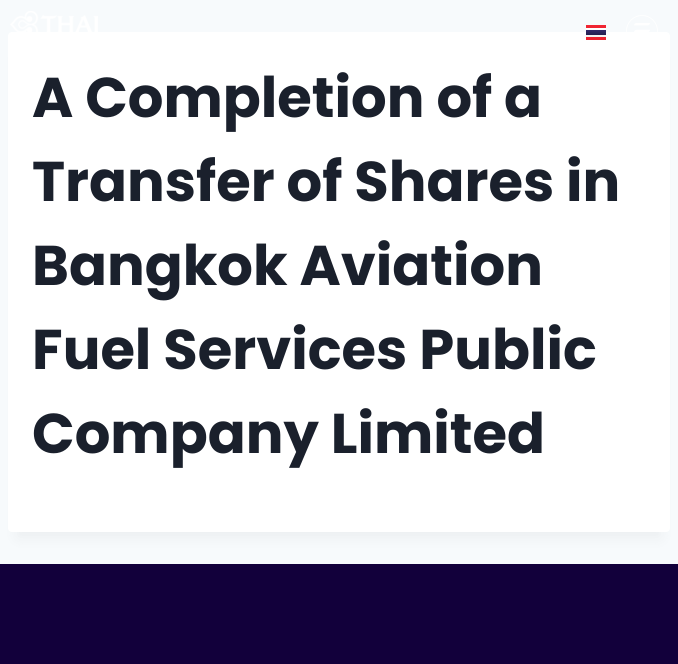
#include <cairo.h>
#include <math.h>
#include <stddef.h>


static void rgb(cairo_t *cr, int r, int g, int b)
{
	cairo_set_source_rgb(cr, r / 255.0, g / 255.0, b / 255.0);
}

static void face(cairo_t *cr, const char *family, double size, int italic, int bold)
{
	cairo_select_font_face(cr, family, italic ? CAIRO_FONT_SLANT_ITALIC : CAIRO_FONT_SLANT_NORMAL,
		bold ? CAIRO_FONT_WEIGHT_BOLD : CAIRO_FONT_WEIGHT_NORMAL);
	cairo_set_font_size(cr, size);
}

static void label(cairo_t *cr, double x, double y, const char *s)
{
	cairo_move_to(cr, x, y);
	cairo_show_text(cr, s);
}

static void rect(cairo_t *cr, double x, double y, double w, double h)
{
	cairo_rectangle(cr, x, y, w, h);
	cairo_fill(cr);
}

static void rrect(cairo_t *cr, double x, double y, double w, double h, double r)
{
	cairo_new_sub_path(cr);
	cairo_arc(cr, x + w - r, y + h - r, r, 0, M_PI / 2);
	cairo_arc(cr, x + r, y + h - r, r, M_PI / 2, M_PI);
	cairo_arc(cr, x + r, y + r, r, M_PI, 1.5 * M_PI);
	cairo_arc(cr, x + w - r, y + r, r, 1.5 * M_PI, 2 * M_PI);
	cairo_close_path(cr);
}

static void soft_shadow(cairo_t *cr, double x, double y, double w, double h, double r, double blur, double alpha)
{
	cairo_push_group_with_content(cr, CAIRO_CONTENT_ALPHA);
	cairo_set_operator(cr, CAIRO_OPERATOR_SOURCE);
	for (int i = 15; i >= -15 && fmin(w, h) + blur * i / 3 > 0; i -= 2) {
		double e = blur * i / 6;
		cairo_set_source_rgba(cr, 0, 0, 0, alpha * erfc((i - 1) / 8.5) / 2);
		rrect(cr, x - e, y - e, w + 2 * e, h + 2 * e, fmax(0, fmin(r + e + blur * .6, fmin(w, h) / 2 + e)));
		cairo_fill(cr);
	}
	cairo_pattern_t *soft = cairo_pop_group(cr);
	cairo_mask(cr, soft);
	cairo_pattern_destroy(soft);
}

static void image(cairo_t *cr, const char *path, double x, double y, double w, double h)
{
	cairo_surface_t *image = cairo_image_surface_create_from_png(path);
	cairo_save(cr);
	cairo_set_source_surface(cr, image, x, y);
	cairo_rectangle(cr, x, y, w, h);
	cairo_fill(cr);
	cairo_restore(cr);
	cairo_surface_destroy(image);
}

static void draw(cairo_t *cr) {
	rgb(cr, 247, 250, 252);
	cairo_paint(cr);
	image(cr, "image0.png", 10, 11, 88, 21);
	rgb(cr, 0, 0, 0);
	soft_shadow(cr, 18, 57, 642, 480, 0, 7.5, 0.05);
	rgb(cr, 255, 255, 255);
	rrect(cr, 8, 32, 662, 500, 4);
	cairo_fill(cr);
	image(cr, "image1.png", 586, 25, 20, 15);
	image(cr, "image2.png", 626, 15, 32, 17);
	face(cr, "Poppins", 56, 0, 1);
	rgb(cr, 26, 32, 44);
	label(cr, 32, 117, "A Completion of a");
	label(cr, 32, 201, "Transfer of Shares in");
	label(cr, 32, 285, "Bangkok Aviation");
	label(cr, 32, 369, "Fuel Services Public");
	label(cr, 32, 453, "Company Limited");
	rgb(cr, 18, 0, 59);
	rect(cr, 0, 564, 678, 100);
}

int main(void) {
	cairo_surface_t *surface = cairo_image_surface_create(CAIRO_FORMAT_RGB24, 678, 664);
	cairo_t *cr = cairo_create(surface);
	cairo_font_options_t *options = cairo_font_options_create();
	cairo_font_options_set_hint_metrics(options, CAIRO_HINT_METRICS_OFF);
	cairo_font_options_set_hint_style(options, CAIRO_HINT_STYLE_NONE);
	cairo_set_font_options(cr, options);
	cairo_set_miter_limit(cr, 4);
	draw(cr);
	cairo_surface_write_to_png(surface, "render.png");
	cairo_font_options_destroy(options);
	cairo_destroy(cr);
	cairo_surface_destroy(surface);
	return 0;
}
